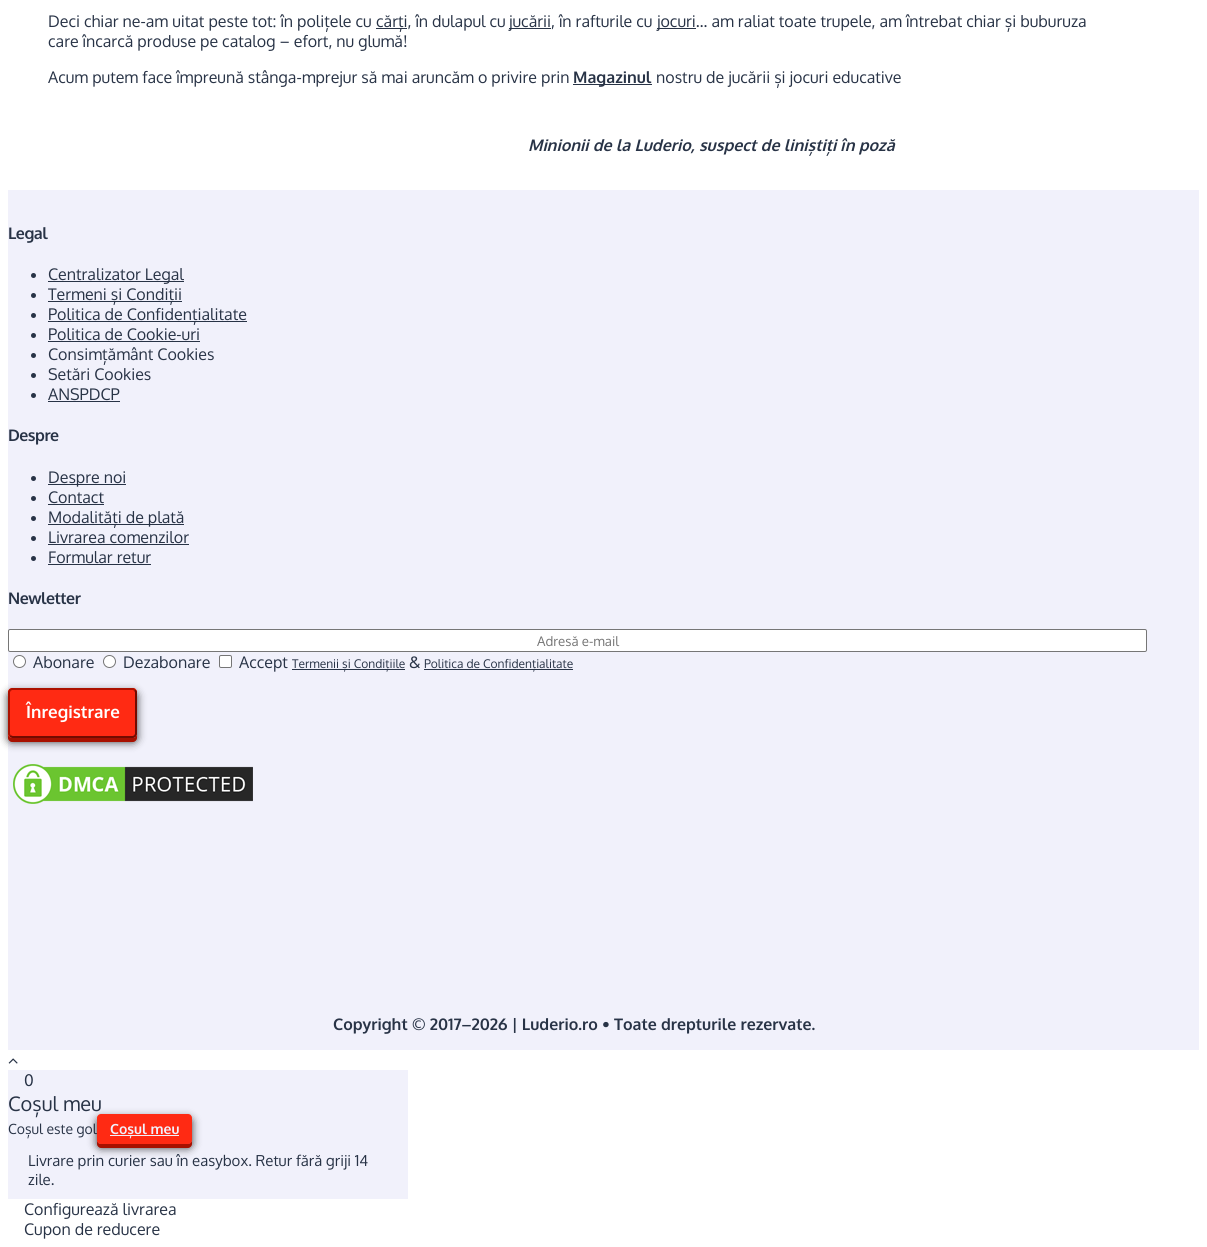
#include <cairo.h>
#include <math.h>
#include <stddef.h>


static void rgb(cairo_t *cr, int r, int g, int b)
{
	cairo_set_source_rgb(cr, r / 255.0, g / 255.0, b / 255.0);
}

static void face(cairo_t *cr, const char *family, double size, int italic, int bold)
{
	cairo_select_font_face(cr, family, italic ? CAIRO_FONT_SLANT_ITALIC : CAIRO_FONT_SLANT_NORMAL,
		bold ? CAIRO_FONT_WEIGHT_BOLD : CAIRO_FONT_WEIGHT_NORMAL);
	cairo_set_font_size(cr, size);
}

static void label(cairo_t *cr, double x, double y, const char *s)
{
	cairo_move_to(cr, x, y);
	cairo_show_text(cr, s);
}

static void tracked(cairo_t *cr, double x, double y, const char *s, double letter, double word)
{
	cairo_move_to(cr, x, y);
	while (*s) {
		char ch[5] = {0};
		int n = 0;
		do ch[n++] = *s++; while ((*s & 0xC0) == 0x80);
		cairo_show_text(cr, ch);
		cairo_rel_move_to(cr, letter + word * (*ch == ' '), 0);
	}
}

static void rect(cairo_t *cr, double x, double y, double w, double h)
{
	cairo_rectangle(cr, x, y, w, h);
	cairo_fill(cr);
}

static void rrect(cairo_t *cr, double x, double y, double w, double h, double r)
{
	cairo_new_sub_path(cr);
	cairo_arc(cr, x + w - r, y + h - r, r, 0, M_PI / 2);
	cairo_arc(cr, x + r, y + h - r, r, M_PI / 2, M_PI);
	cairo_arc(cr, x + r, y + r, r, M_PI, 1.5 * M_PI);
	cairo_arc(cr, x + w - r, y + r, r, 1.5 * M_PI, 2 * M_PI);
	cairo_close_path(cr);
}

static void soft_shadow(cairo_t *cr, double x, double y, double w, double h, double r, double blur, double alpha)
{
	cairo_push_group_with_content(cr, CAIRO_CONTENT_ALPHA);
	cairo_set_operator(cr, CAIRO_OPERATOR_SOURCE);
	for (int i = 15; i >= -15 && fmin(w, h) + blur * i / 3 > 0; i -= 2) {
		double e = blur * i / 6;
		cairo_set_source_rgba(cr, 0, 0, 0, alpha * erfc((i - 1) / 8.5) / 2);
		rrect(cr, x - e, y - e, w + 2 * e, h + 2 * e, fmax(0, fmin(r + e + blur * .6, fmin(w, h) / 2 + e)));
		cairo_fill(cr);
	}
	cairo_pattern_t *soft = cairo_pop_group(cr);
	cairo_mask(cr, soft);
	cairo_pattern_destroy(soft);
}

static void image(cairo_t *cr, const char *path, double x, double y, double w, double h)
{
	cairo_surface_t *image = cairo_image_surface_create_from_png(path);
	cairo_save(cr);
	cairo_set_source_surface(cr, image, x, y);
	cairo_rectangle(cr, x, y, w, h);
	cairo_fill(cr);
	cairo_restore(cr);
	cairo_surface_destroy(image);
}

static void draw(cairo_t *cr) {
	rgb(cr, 255, 255, 255);
	cairo_paint(cr);
	face(cr, "Oxygen", 16, 0, 0);
	rgb(cr, 40, 51, 70);
	label(cr, 48, 27, "Deci chiar ne-am uitat peste tot: în polițele cu");
	rect(cr, 376, 28, 31, 1);
	label(cr, 376, 27, "cărți, în dulapul cu");
	rect(cr, 509, 28, 42, 1);
	label(cr, 509, 27, "jucării, în rafturile cu");
	rect(cr, 657, 28, 39, 1);
	label(cr, 657, 27, "jocuri… am raliat toate trupele, am întrebat chiar și buburuza");
	label(cr, 48, 47, "care încarcă produse pe catalog – efort, nu glumă!");
	label(cr, 48, 83, "Acum putem face împreună stânga-mprejur să mai aruncăm o privire prin");
	rect(cr, 573, 84, 79, 1);
	face(cr, "Oxygen", 16, 0, 1);
	label(cr, 573, 83, "Magazinul");
	face(cr, "Oxygen", 16, 0, 0);
	label(cr, 656, 83, "nostru de jucării și jocuri educative");
	face(cr, "Oxygen", 16, 1, 1);
	label(cr, 528, 151, "Minionii de la Luderio, suspect de liniștiți în poză");
	rgb(cr, 241, 241, 251);
	rect(cr, 8, 190, 1191, 860);
	face(cr, "Oxygen", 16, 0, 1);
	rgb(cr, 40, 51, 70);
	tracked(cr, 8, 239, "Legal", -0.5, 0);
	cairo_new_path(cr);
	cairo_arc(cr, 33.5, 275.5, 2.5, 0, 2 * M_PI);
	cairo_fill(cr);
	rect(cr, 48, 281, 136, 1);
	face(cr, "Oxygen", 16, 0, 0);
	label(cr, 48, 280, "Centralizator Legal");
	cairo_new_path(cr);
	cairo_arc(cr, 33.5, 295.5, 2.5, 0, 2 * M_PI);
	cairo_fill(cr);
	rect(cr, 48, 301, 134, 1);
	label(cr, 48, 300, "Termeni și Condiții");
	cairo_new_path(cr);
	cairo_arc(cr, 33.5, 315.5, 2.5, 0, 2 * M_PI);
	cairo_fill(cr);
	rect(cr, 48, 321, 199, 1);
	label(cr, 48, 320, "Politica de Confidențialitate");
	cairo_new_path(cr);
	cairo_arc(cr, 33.5, 335.5, 2.5, 0, 2 * M_PI);
	cairo_fill(cr);
	label(cr, 48, 340, "Politica de Cookie-uri");
	rect(cr, 48, 341, 152, 1);
	cairo_new_path(cr);
	cairo_arc(cr, 33.5, 355.5, 2.5, 0, 2 * M_PI);
	cairo_fill(cr);
	label(cr, 48, 360, "Consimțământ Cookies");
	cairo_new_path(cr);
	cairo_arc(cr, 33.5, 375.5, 2.5, 0, 2 * M_PI);
	cairo_fill(cr);
	label(cr, 48, 380, "Setări Cookies");
	cairo_new_path(cr);
	cairo_arc(cr, 33.5, 395.5, 2.5, 0, 2 * M_PI);
	cairo_fill(cr);
	label(cr, 48, 400, "ANSPDCP");
	rect(cr, 48, 401, 72, 1);
	face(cr, "Oxygen", 16, 0, 1);
	tracked(cr, 8, 441, "Despre", -0.5, 0);
	cairo_new_path(cr);
	cairo_arc(cr, 33.5, 478.5, 2.5, 0, 2 * M_PI);
	cairo_fill(cr);
	rect(cr, 48, 484, 78, 1);
	face(cr, "Oxygen", 16, 0, 0);
	label(cr, 48, 483, "Despre noi");
	cairo_new_path(cr);
	cairo_arc(cr, 33.5, 498.5, 2.5, 0, 2 * M_PI);
	cairo_fill(cr);
	label(cr, 48, 503, "Contact");
	rect(cr, 48, 504, 56, 1);
	cairo_new_path(cr);
	cairo_arc(cr, 33.5, 518.5, 2.5, 0, 2 * M_PI);
	cairo_fill(cr);
	rect(cr, 48, 524, 136, 1);
	label(cr, 48, 523, "Modalități de plată");
	cairo_new_path(cr);
	cairo_arc(cr, 33.5, 538.5, 2.5, 0, 2 * M_PI);
	cairo_fill(cr);
	label(cr, 48, 543, "Livrarea comenzilor");
	rect(cr, 48, 544, 141, 1);
	cairo_new_path(cr);
	cairo_arc(cr, 33.5, 558.5, 2.5, 0, 2 * M_PI);
	cairo_fill(cr);
	label(cr, 48, 563, "Formular retur");
	rect(cr, 48, 564, 103, 1);
	face(cr, "Oxygen", 16, 0, 1);
	tracked(cr, 8, 604, "Newletter", -0.5, 0);
	rgb(cr, 255, 255, 255);
	rrect(cr, 8.5, 629.5, 1138, 22, 1.5);
	cairo_fill_preserve(cr);
	rgb(cr, 118, 118, 118);
	cairo_set_line_width(cr, 1);
	cairo_stroke(cr);
	face(cr, "Oxygen", 13.25, 0, 0);
	rgb(cr, 117, 117, 117);
	label(cr, 537, 646, "Adresă e-mail");
	rgb(cr, 255, 255, 255);
	cairo_new_path(cr);
	cairo_arc(cr, 19.5, 661.5, 6, 0, 2 * M_PI);
	cairo_fill_preserve(cr);
	rgb(cr, 118, 118, 118);
	cairo_stroke(cr);
	face(cr, "Oxygen", 16, 0, 0);
	rgb(cr, 40, 51, 70);
	label(cr, 33, 668, "Abonare");
	rgb(cr, 255, 255, 255);
	cairo_new_path(cr);
	cairo_arc(cr, 109.5, 661.5, 6, 0, 2 * M_PI);
	cairo_fill_preserve(cr);
	rgb(cr, 118, 118, 118);
	cairo_stroke(cr);
	rgb(cr, 40, 51, 70);
	label(cr, 123, 668, "Dezabonare");
	rgb(cr, 255, 255, 255);
	rrect(cr, 219.5, 655.5, 12, 12, 1.5);
	cairo_fill_preserve(cr);
	rgb(cr, 118, 118, 118);
	cairo_stroke(cr);
	rgb(cr, 40, 51, 70);
	label(cr, 239, 668, "Accept");
	rect(cr, 292, 669, 113, 1);
	face(cr, "Oxygen", 12, 0, 0);
	label(cr, 292, 668, "Termenii și Condițiile");
	face(cr, "Oxygen", 16, 0, 0);
	label(cr, 409, 668, "&");
	rect(cr, 424, 669, 149, 1);
	face(cr, "Oxygen", 12, 0, 0);
	label(cr, 424, 668, "Politica de Confidențialitate");
	rgb(cr, 0, 0, 0);
	soft_shadow(cr, 8, 692, 129, 50, 4, 4.5, 0.75);
	rgb(cr, 167, 16, 0);
	cairo_new_path(cr);
	cairo_move_to(cr, 8, 734);
	cairo_line_to(cr, 8, 738);
	cairo_curve_to(cr, 8, 740, 10, 742, 12, 742);
	cairo_line_to(cr, 133, 742);
	cairo_curve_to(cr, 135, 742, 137, 740, 137, 738);
	cairo_line_to(cr, 137, 734);
	cairo_curve_to(cr, 137, 736, 135, 738, 133, 738);
	cairo_line_to(cr, 12, 738);
	cairo_curve_to(cr, 10, 738, 8, 736, 8, 734);
	cairo_close_path(cr);
	cairo_fill(cr);
	rgb(cr, 255, 42, 19);
	rrect(cr, 8, 688, 129, 50, 4);
	cairo_fill(cr);
	cairo_new_path(cr);
	cairo_move_to(cr, 135, 690);
	cairo_line_to(cr, 136, 692);
	cairo_line_to(cr, 136, 734);
	cairo_line_to(cr, 135, 736);
	cairo_line_to(cr, 133, 737);
	cairo_line_to(cr, 12.5, 737);
	cairo_line_to(cr, 10, 736);
	rgb(cr, 115, 11, 0);
	cairo_set_line_width(cr, 2);
	cairo_stroke(cr);
	cairo_new_path(cr);
	cairo_move_to(cr, 10, 736);
	cairo_line_to(cr, 9, 734);
	cairo_line_to(cr, 9, 692);
	cairo_line_to(cr, 10, 690);
	cairo_line_to(cr, 12, 689);
	cairo_line_to(cr, 133, 689);
	cairo_line_to(cr, 135, 690);
	rgb(cr, 172, 17, 0);
	cairo_stroke(cr);
	face(cr, "Oxygen", 17, 0, 1);
	rgb(cr, 255, 255, 255);
	label(cr, 26, 718, "Înregistrare");
	image(cr, "image0.png", 13, 764, 240, 40);
	face(cr, "Oxygen", 16, 0, 1);
	rgb(cr, 40, 51, 70);
	label(cr, 333, 1030, "Copyright © 2017–2026 | Luderio.ro • Toate drepturile rezervate.");
	image(cr, "image1.png", 8, 1058, 10, 6);
	rgb(cr, 241, 241, 251);
	rect(cr, 8, 1070, 400, 129);
	face(cr, "Oxygen", 16, 0, 0);
	rgb(cr, 40, 51, 70);
	label(cr, 24, 1086, "0");
	face(cr, "Oxygen", 20, 0, 0);
	label(cr, 8, 1111, "Coșul meu");
	face(cr, "Oxygen", 14, 0, 0);
	label(cr, 8, 1134, "Coșul este gol");
	rgb(cr, 0, 0, 0);
	soft_shadow(cr, 97, 1118, 95, 30, 4, 4.5, 0.75);
	rgb(cr, 167, 16, 0);
	cairo_new_path(cr);
	cairo_move_to(cr, 97, 1140);
	cairo_line_to(cr, 97, 1144);
	cairo_curve_to(cr, 97, 1146, 99, 1148, 101, 1148);
	cairo_line_to(cr, 188, 1148);
	cairo_curve_to(cr, 190, 1148, 192, 1146, 192, 1144);
	cairo_line_to(cr, 192, 1140);
	cairo_curve_to(cr, 192, 1142, 190, 1144, 188, 1144);
	cairo_line_to(cr, 100, 1144);
	cairo_curve_to(cr, 99, 1144, 97, 1142, 97, 1140);
	cairo_close_path(cr);
	cairo_fill(cr);
	rgb(cr, 255, 42, 19);
	rrect(cr, 97, 1114, 95, 30, 4);
	cairo_fill(cr);
	rgb(cr, 241, 241, 251);
	rect(cr, 110, 1135, 69, 1);
	face(cr, "Oxygen", 14, 0, 1);
	label(cr, 110, 1134, "Coșul meu");
	face(cr, "Oxygen", 15, 0, 0);
	rgb(cr, 40, 51, 70);
	label(cr, 28, 1166, "Livrare prin curier sau în easybox. Retur fără griji 14");
	label(cr, 28, 1185, "zile.");
	face(cr, "Oxygen", 16, 0, 0);
	label(cr, 24, 1215, "Configurează livrarea");
	label(cr, 24, 1235, "Cupon de reducere");
}

int main(void) {
	cairo_surface_t *surface = cairo_image_surface_create(CAIRO_FORMAT_RGB24, 1207, 1247);
	cairo_t *cr = cairo_create(surface);
	cairo_font_options_t *options = cairo_font_options_create();
	cairo_font_options_set_hint_metrics(options, CAIRO_HINT_METRICS_OFF);
	cairo_font_options_set_hint_style(options, CAIRO_HINT_STYLE_NONE);
	cairo_set_font_options(cr, options);
	cairo_set_miter_limit(cr, 4);
	draw(cr);
	cairo_surface_write_to_png(surface, "render.png");
	cairo_font_options_destroy(options);
	cairo_destroy(cr);
	cairo_surface_destroy(surface);
	return 0;
}
